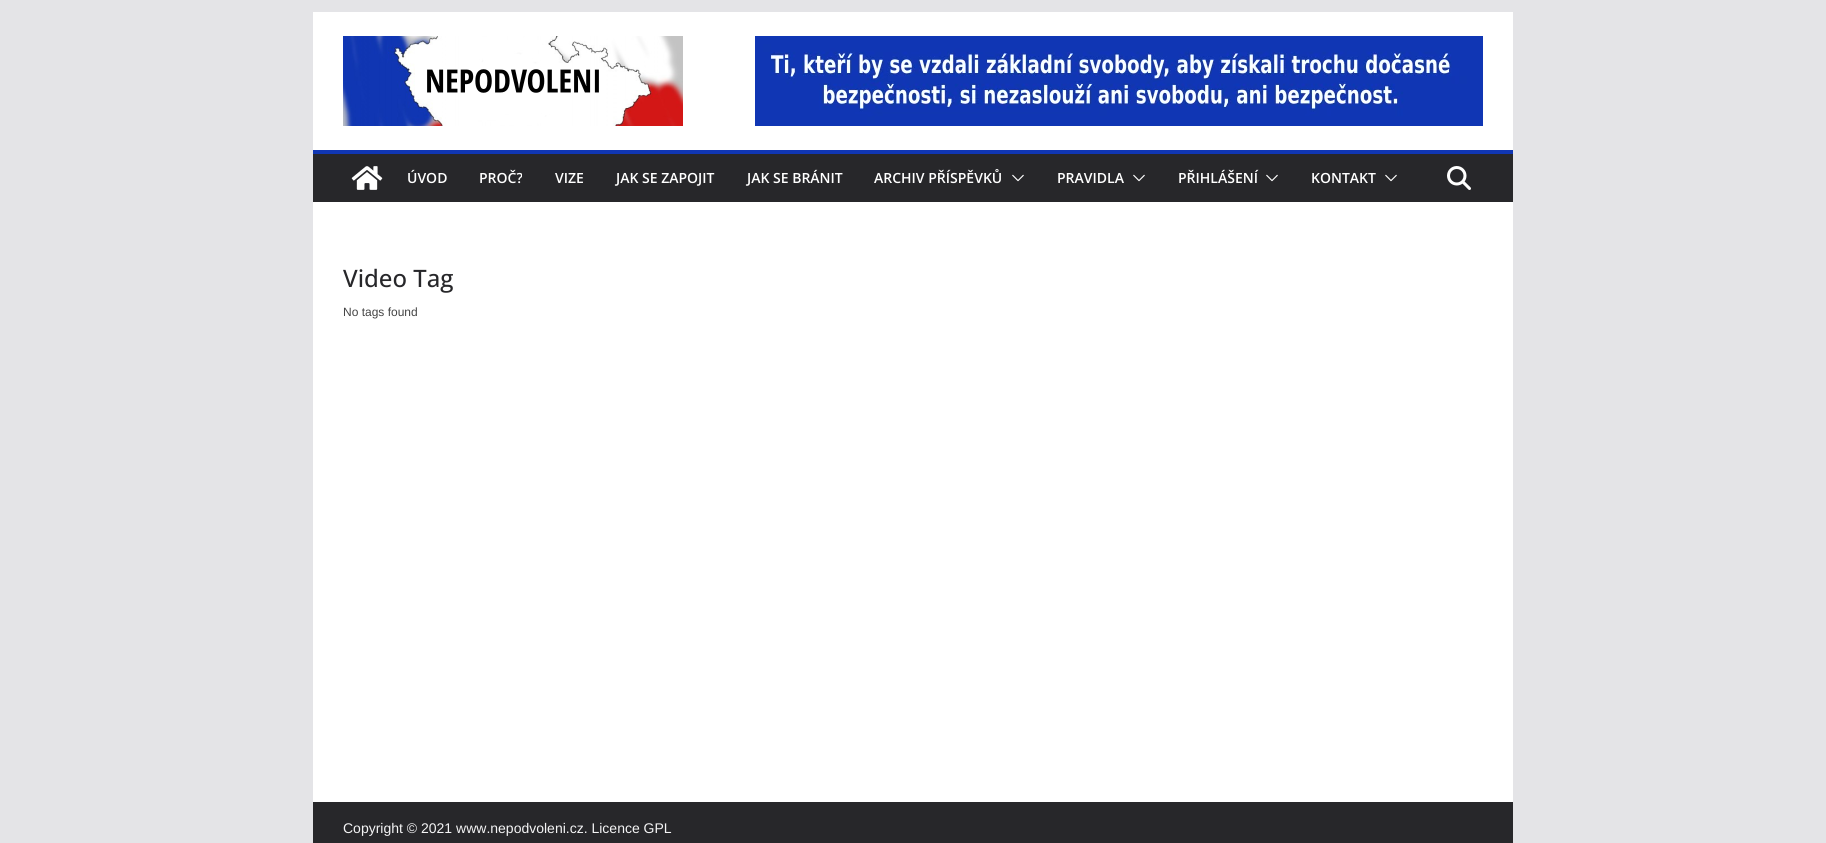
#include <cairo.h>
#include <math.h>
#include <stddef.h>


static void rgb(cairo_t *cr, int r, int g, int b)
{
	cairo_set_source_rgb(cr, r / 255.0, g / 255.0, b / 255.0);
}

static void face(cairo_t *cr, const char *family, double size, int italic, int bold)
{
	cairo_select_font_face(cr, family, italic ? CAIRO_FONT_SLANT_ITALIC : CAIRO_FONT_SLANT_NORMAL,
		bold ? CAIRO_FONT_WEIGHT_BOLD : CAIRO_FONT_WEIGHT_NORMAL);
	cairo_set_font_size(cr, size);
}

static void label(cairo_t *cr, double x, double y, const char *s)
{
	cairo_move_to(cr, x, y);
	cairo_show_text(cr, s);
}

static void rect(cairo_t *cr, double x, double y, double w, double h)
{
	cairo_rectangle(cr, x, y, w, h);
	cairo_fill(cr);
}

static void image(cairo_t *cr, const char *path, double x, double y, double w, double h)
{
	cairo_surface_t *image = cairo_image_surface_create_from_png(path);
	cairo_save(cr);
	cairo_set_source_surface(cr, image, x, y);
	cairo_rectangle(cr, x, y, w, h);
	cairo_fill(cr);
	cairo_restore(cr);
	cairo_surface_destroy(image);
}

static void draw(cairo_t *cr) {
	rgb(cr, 228, 228, 231);
	cairo_paint(cr);
	rgb(cr, 255, 255, 255);
	rect(cr, 313, 12, 1200, 138);
	image(cr, "image0.png", 343, 36, 340, 90);
	image(cr, "image1.png", 755, 36, 728, 90);
	rgb(cr, 39, 39, 42);
	rect(cr, 313, 154, 1200, 48);
	rgb(cr, 16, 54, 179);
	rect(cr, 313, 150, 1200, 4);
	image(cr, "image2.png", 351, 166, 32, 24);
	face(cr, "Open Sans SemiBold", 14, 0, 0);
	rgb(cr, 255, 255, 255);
	label(cr, 407, 183, "ÚVOD");
	label(cr, 479, 183, "PROČ?");
	label(cr, 555, 183, "VIZE");
	label(cr, 616, 183, "JAK SE ZAPOJIT");
	label(cr, 747, 183, "JAK SE BRÁNIT");
	label(cr, 874, 183, "ARCHIV PŘÍSPĚVKŮ");
	image(cr, "image3.png", 1012, 174, 12, 8);
	label(cr, 1057, 183, "PRAVIDLA");
	image(cr, "image3.png", 1133, 174, 12, 8);
	label(cr, 1178, 183, "PŘIHLÁŠENÍ");
	image(cr, "image3.png", 1266, 174, 12, 8);
	label(cr, 1311, 183, "KONTAKT");
	image(cr, "image3.png", 1385, 174, 12, 8);
	image(cr, "image4.png", 1447, 166, 24, 24);
	rect(cr, 313, 202, 1200, 600);
	face(cr, "Open Sans Medium", 24, 0, 0);
	rgb(cr, 39, 39, 42);
	label(cr, 343, 287, "Video Tag");
	face(cr, "Liberation Sans", 12, 0, 0);
	rgb(cr, 68, 68, 68);
	label(cr, 343, 316, "No tags found");
	rgb(cr, 39, 39, 42);
	rect(cr, 313, 802, 1200, 41);
	face(cr, "Liberation Sans", 14, 0, 0);
	rgb(cr, 244, 244, 245);
	label(cr, 343, 833, "Copyright © 2021 www.nepodvoleni.cz. Licence GPL");
}

int main(void) {
	cairo_surface_t *surface = cairo_image_surface_create(CAIRO_FORMAT_RGB24, 1826, 843);
	cairo_t *cr = cairo_create(surface);
	cairo_font_options_t *options = cairo_font_options_create();
	cairo_font_options_set_hint_metrics(options, CAIRO_HINT_METRICS_OFF);
	cairo_font_options_set_hint_style(options, CAIRO_HINT_STYLE_NONE);
	cairo_set_font_options(cr, options);
	cairo_set_miter_limit(cr, 4);
	draw(cr);
	cairo_surface_write_to_png(surface, "render.png");
	cairo_font_options_destroy(options);
	cairo_destroy(cr);
	cairo_surface_destroy(surface);
	return 0;
}
